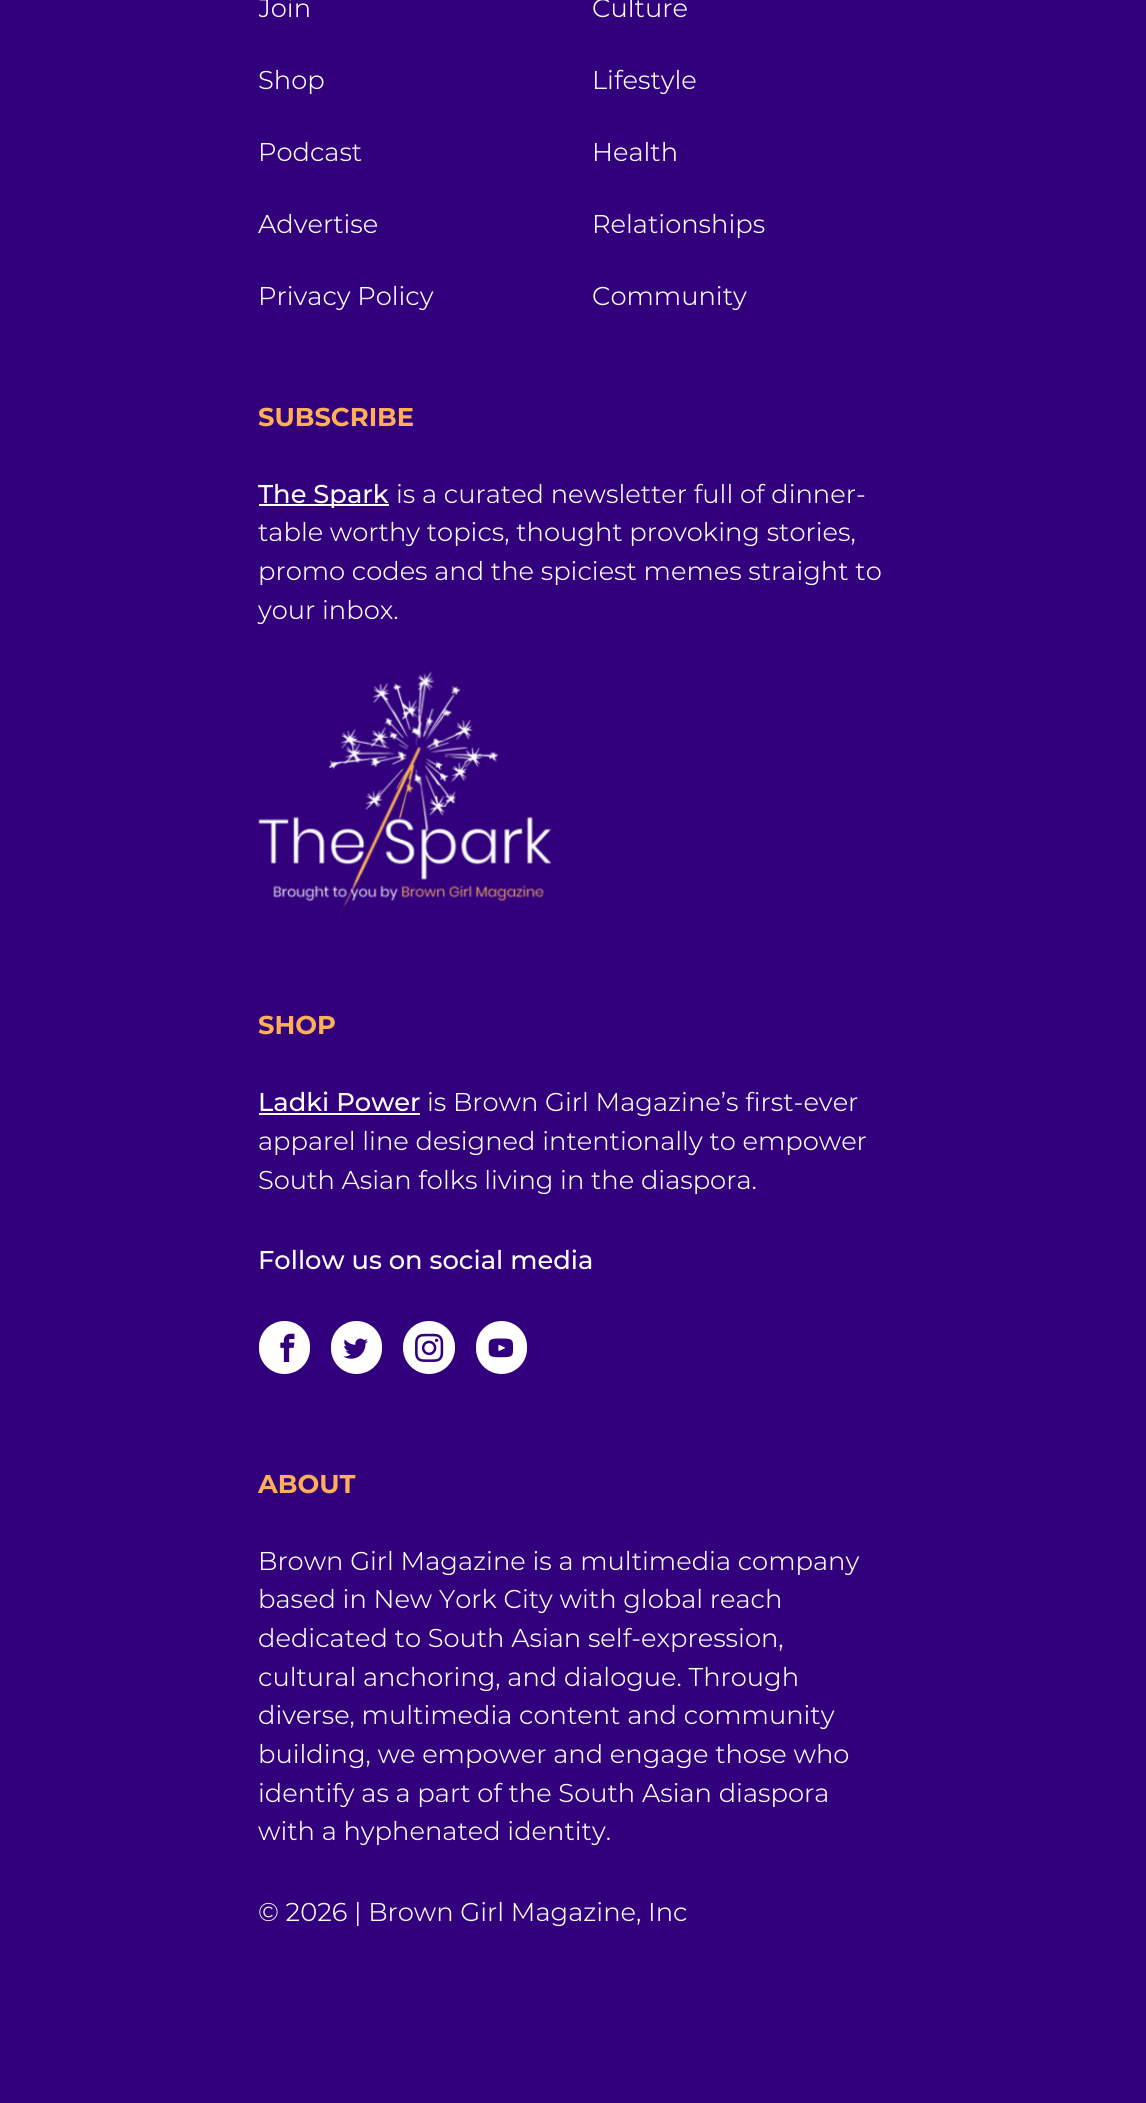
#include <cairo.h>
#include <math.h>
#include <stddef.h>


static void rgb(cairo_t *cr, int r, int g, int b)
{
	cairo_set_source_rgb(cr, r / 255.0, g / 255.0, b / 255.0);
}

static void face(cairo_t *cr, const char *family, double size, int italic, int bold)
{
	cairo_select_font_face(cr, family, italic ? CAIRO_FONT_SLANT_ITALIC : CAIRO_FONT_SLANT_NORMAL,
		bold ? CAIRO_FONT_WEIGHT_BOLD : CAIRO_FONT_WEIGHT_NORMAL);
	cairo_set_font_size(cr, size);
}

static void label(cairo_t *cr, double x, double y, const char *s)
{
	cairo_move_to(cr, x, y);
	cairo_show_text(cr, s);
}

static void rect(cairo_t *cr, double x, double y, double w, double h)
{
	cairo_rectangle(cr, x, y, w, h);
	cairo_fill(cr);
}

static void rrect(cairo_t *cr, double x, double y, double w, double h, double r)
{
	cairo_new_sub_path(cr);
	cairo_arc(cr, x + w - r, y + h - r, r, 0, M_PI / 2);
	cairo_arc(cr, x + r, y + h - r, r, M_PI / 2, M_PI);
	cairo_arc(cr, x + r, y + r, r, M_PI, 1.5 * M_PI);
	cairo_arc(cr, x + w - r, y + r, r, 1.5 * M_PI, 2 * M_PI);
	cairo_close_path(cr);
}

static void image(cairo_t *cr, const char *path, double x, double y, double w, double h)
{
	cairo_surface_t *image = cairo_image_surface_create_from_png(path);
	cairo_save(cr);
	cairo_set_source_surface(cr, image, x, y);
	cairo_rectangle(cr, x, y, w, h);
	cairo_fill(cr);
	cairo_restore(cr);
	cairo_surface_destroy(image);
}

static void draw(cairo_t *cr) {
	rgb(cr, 50, 0, 125);
	cairo_paint(cr);
	cairo_save(cr);
	cairo_rectangle(cr, 259, 0, 294, 61);
	cairo_clip(cr);
	face(cr, "Montserrat Light", 25.75, 0, 0);
	rgb(cr, 255, 255, 255);
	label(cr, 258, 17, "Join");
	cairo_restore(cr);
	face(cr, "Montserrat Light", 25.75, 0, 0);
	rgb(cr, 255, 255, 255);
	label(cr, 258, 89, "Shop");
	label(cr, 258, 161, "Podcast");
	label(cr, 258, 233, "Advertise");
	label(cr, 258, 305, "Privacy Policy");
	label(cr, 592, 17, "Culture");
	label(cr, 592, 89, "Lifestyle");
	label(cr, 592, 161, "Health");
	label(cr, 592, 233, "Relationships");
	label(cr, 592, 305, "Community");
	face(cr, "Montserrat", 25.75, 0, 1);
	rgb(cr, 255, 175, 85);
	label(cr, 258, 426, "SUBSCRIBE");
	rgb(cr, 255, 255, 255);
	rect(cr, 259, 504, 130, 2);
	face(cr, "Montserrat Medium", 25.75, 0, 0);
	label(cr, 258, 503, "The Spark");
	face(cr, "Montserrat Light", 25.75, 0, 0);
	label(cr, 396, 503, "is a curated newsletter full of dinner-");
	label(cr, 258, 541, "table worthy topics, thought provoking stories,");
	label(cr, 258, 580, "promo codes and the spiciest memes straight to");
	label(cr, 258, 619, "your inbox.");
	image(cr, "image0.png", 258, 671, 294, 244);
	face(cr, "Montserrat", 25.75, 0, 1);
	rgb(cr, 255, 175, 85);
	label(cr, 258, 1034, "SHOP");
	face(cr, "Montserrat Medium", 25.75, 0, 0);
	rgb(cr, 255, 255, 255);
	label(cr, 258, 1111, "Ladki Power");
	rect(cr, 259, 1113, 161, 2);
	face(cr, "Montserrat Light", 25.75, 0, 0);
	label(cr, 427, 1111, "is Brown Girl Magazine’s first-ever");
	label(cr, 258, 1150, "apparel line designed intentionally to empower");
	label(cr, 258, 1189, "South Asian folks living in the diaspora.");
	face(cr, "Montserrat Medium", 25.75, 0, 0);
	label(cr, 258, 1269, "Follow us on social media");
	rrect(cr, 259, 1321, 51, 53, 25.5);
	cairo_fill(cr);
	image(cr, "image1.png", 280, 1333, 15, 29);
	rrect(cr, 331, 1321, 51, 53, 25.5);
	cairo_fill(cr);
	image(cr, "image2.png", 343, 1338, 25, 21);
	rrect(cr, 403, 1321, 52, 53, 26);
	cairo_fill(cr);
	image(cr, "image3.png", 415, 1333, 29, 29);
	rrect(cr, 476, 1321, 51, 53, 25.5);
	cairo_fill(cr);
	image(cr, "image4.png", 488, 1338, 26, 20);
	face(cr, "Montserrat", 25.75, 0, 1);
	rgb(cr, 255, 175, 85);
	label(cr, 258, 1493, "ABOUT");
	face(cr, "Montserrat Light", 25.75, 0, 0);
	rgb(cr, 255, 255, 255);
	label(cr, 258, 1570, "Brown Girl Magazine is a multimedia company");
	label(cr, 258, 1608, "based in New York City with global reach");
	label(cr, 258, 1647, "dedicated to South Asian self-expression,");
	label(cr, 258, 1686, "cultural anchoring, and dialogue. Through");
	label(cr, 258, 1724, "diverse, multimedia content and community");
	label(cr, 258, 1763, "building, we empower and engage those who");
	label(cr, 258, 1802, "identify as a part of the South Asian diaspora");
	label(cr, 258, 1840, "with a hyphenated identity.");
	label(cr, 258, 1921, "© 2026 | Brown Girl Magazine, Inc");
}

int main(void) {
	cairo_surface_t *surface = cairo_image_surface_create(CAIRO_FORMAT_RGB24, 1146, 2103);
	cairo_t *cr = cairo_create(surface);
	cairo_font_options_t *options = cairo_font_options_create();
	cairo_font_options_set_hint_metrics(options, CAIRO_HINT_METRICS_OFF);
	cairo_font_options_set_hint_style(options, CAIRO_HINT_STYLE_NONE);
	cairo_set_font_options(cr, options);
	cairo_set_miter_limit(cr, 4);
	draw(cr);
	cairo_surface_write_to_png(surface, "render.png");
	cairo_font_options_destroy(options);
	cairo_destroy(cr);
	cairo_surface_destroy(surface);
	return 0;
}
